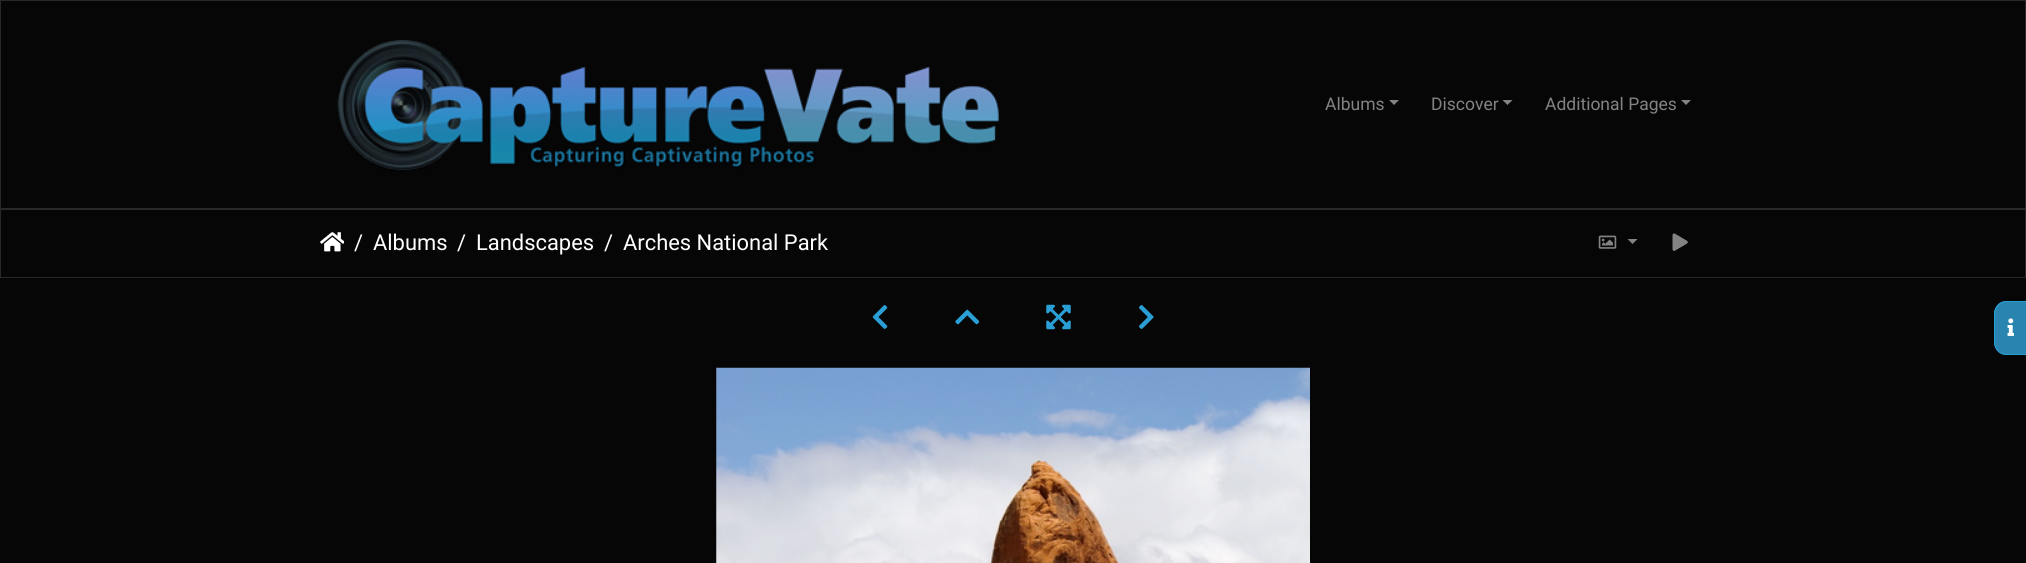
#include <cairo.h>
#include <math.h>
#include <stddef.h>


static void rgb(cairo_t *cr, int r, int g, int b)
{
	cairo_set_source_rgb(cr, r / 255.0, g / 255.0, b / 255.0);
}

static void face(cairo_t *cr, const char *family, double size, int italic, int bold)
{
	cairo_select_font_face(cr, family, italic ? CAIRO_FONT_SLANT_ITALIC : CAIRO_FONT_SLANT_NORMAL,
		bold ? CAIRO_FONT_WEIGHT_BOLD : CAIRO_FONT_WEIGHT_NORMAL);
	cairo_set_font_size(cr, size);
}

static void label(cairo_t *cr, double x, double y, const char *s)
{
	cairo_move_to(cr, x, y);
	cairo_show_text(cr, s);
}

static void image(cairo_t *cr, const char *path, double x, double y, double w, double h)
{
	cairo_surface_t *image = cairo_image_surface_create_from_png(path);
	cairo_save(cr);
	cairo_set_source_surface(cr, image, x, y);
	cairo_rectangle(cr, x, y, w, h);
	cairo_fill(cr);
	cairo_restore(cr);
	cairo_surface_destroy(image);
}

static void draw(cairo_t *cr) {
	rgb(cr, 6, 6, 6);
	cairo_paint(cr);
	cairo_rectangle(cr, 0.5, 0.5, 2025, 208);
	rgb(cr, 40, 40, 40);
	cairo_set_line_width(cr, 1);
	cairo_stroke(cr);
	image(cr, "image0.png", 337, 40, 662, 132);
	face(cr, "Roboto", 17.5, 0, 0);
	rgb(cr, 131, 131, 131);
	label(cr, 1325, 110, "Albums");
	cairo_new_path(cr);
	cairo_move_to(cr, 1389, 100);
	cairo_line_to(cr, 1399, 100);
	cairo_line_to(cr, 1394, 105);
	cairo_close_path(cr);
	cairo_fill(cr);
	label(cr, 1431, 110, "Discover");
	cairo_new_path(cr);
	cairo_move_to(cr, 1502.5, 100);
	cairo_line_to(cr, 1512.5, 100);
	cairo_line_to(cr, 1507.5, 105);
	cairo_close_path(cr);
	cairo_fill(cr);
	label(cr, 1545, 110, "Additional Pages");
	cairo_new_path(cr);
	cairo_move_to(cr, 1681, 100);
	cairo_line_to(cr, 1691, 100);
	cairo_line_to(cr, 1686, 105);
	cairo_close_path(cr);
	cairo_fill(cr);
	cairo_rectangle(cr, 0.5, 209.5, 2025, 68);
	rgb(cr, 40, 40, 40);
	cairo_stroke(cr);
	image(cr, "image1.png", 320, 232, 24, 20);
	face(cr, "Roboto", 21.9, 0, 0);
	rgb(cr, 255, 255, 255);
	label(cr, 354, 250, "/");
	label(cr, 373, 250, "Albums");
	label(cr, 457, 250, "/");
	label(cr, 476, 250, "Landscapes");
	label(cr, 604, 250, "/");
	label(cr, 623, 250, "Arches National Park");
	image(cr, "image2.png", 1598, 235, 19, 14);
	rgb(cr, 131, 131, 131);
	cairo_new_path(cr);
	cairo_move_to(cr, 1627.5, 239);
	cairo_line_to(cr, 1637.5, 239);
	cairo_line_to(cr, 1632.5, 244);
	cairo_close_path(cr);
	cairo_fill(cr);
	image(cr, "image3.png", 1672, 233, 16, 18);
	image(cr, "image4.png", 872, 305, 16, 24);
	image(cr, "image5.png", 955, 309, 25, 16);
	image(cr, "image6.png", 1046, 304, 25, 26);
	image(cr, "image7.png", 1139, 305, 15, 24);
	rgb(cr, 41, 133, 176);
	cairo_new_path(cr);
	cairo_move_to(cr, 2007, 301);
	cairo_line_to(cr, 2026, 301);
	cairo_line_to(cr, 2026, 355);
	cairo_line_to(cr, 2007, 355);
	cairo_curve_to(cr, 2000, 355, 1994, 349, 1994, 342);
	cairo_line_to(cr, 1994, 314);
	cairo_curve_to(cr, 1994, 307, 2000, 301, 2007, 301);
	cairo_close_path(cr);
	cairo_fill(cr);
	rgb(cr, 42, 159, 214);
	cairo_set_fill_rule(cr, CAIRO_FILL_RULE_EVEN_ODD);
	cairo_new_path(cr);
	cairo_move_to(cr, 2006, 301);
	cairo_line_to(cr, 2026, 301);
	cairo_line_to(cr, 2026, 355);
	cairo_line_to(cr, 2006, 355);
	cairo_curve_to(cr, 1999, 355, 1994, 349, 1994, 342);
	cairo_line_to(cr, 1994, 314);
	cairo_curve_to(cr, 1994, 307, 1999, 301, 2006, 301);
	cairo_close_path(cr);
	cairo_move_to(cr, 2006, 302);
	cairo_line_to(cr, 2026, 302);
	cairo_line_to(cr, 2026, 354);
	cairo_line_to(cr, 2006, 354);
	cairo_curve_to(cr, 2000, 354, 1995, 349, 1995, 342);
	cairo_line_to(cr, 1995, 314);
	cairo_curve_to(cr, 1995, 308, 2000, 302, 2006, 302);
	cairo_close_path(cr);
	cairo_fill(cr);
	image(cr, "image8.png", 2007, 318, 8, 18);
	image(cr, "image9.png", 716, 367, 594, 196);
}

int main(void) {
	cairo_surface_t *surface = cairo_image_surface_create(CAIRO_FORMAT_RGB24, 2026, 563);
	cairo_t *cr = cairo_create(surface);
	cairo_font_options_t *options = cairo_font_options_create();
	cairo_font_options_set_hint_metrics(options, CAIRO_HINT_METRICS_OFF);
	cairo_font_options_set_hint_style(options, CAIRO_HINT_STYLE_NONE);
	cairo_set_font_options(cr, options);
	cairo_set_miter_limit(cr, 4);
	draw(cr);
	cairo_surface_write_to_png(surface, "render.png");
	cairo_font_options_destroy(options);
	cairo_destroy(cr);
	cairo_surface_destroy(surface);
	return 0;
}
